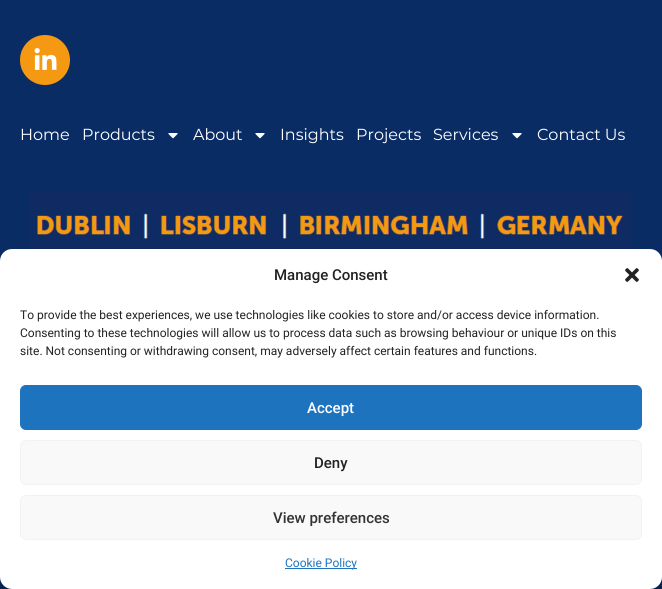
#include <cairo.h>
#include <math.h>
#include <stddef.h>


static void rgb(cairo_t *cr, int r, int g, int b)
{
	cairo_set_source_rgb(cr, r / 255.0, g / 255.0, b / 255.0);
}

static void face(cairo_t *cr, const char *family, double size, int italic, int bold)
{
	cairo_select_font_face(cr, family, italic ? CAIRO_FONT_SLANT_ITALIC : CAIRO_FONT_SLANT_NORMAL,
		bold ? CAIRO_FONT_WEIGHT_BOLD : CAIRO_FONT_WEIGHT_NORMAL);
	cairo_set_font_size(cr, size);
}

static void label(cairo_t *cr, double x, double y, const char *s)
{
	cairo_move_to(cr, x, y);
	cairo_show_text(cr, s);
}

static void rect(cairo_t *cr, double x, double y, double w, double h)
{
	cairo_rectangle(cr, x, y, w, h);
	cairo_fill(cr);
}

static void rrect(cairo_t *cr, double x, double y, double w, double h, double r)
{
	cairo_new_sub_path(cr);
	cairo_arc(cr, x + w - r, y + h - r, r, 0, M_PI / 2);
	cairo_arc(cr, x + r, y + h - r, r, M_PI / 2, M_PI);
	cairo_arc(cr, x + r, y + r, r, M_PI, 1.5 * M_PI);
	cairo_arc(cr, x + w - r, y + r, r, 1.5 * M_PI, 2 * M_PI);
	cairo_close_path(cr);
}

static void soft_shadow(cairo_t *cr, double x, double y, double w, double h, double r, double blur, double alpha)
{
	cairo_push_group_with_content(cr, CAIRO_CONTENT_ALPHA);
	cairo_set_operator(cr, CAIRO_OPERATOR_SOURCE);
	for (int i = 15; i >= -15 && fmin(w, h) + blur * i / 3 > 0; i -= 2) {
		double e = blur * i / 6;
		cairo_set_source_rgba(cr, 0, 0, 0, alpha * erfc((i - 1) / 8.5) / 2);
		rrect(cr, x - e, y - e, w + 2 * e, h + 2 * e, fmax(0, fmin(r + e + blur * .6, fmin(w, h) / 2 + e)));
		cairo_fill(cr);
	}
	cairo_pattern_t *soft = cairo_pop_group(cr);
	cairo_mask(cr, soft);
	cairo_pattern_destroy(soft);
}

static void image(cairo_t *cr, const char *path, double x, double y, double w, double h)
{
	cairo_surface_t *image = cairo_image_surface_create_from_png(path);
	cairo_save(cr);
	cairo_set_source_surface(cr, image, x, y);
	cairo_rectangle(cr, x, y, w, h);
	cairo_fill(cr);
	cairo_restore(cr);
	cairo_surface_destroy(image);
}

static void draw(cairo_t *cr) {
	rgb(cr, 10, 44, 101);
	cairo_paint(cr);
	rgb(cr, 244, 153, 17);
	cairo_arc(cr, 45, 60, 25, 0, 2 * M_PI);
	cairo_fill(cr);
	image(cr, "image0.png", 34, 48, 23, 22);
	face(cr, "Montserrat", 16, 0, 0);
	rgb(cr, 255, 255, 255);
	label(cr, 20, 140, "Home");
	label(cr, 82, 140, "Products");
	image(cr, "image1.png", 168, 133, 10, 6);
	label(cr, 193, 140, "About");
	image(cr, "image1.png", 255, 133, 10, 6);
	label(cr, 280, 140, "Insights");
	label(cr, 356, 140, "Projects");
	label(cr, 433, 140, "Services");
	image(cr, "image1.png", 512, 133, 10, 6);
	label(cr, 537, 140, "Contact Us");
	image(cr, "image2.png", 30, 191, 602, 58);
	rgb(cr, 0, 0, 0);
	soft_shadow(cr, 0, 255, 662, 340, 12, 3, 0.23);
	soft_shadow(cr, 0, 259, 662, 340, 12, 10, 0.19);
	rgb(cr, 255, 255, 255);
	rrect(cr, 0, 249, 662, 340, 12);
	cairo_fill(cr);
	face(cr, "Roboto Medium", 15, 0, 0);
	rgb(cr, 34, 34, 34);
	label(cr, 274, 280, "Manage Consent");
	image(cr, "image3.png", 625, 268, 14, 14);
	face(cr, "Roboto", 12, 0, 0);
	label(cr, 20, 319, "To provide the best experiences, we use technologies like cookies to store and/or access device information.");
	label(cr, 20, 337, "Consenting to these technologies will allow us to process data such as browsing behaviour or unique IDs on this");
	label(cr, 20, 355, "site. Not consenting or withdrawing consent, may adversely affect certain features and functions.");
	rgb(cr, 30, 115, 190);
	rrect(cr, 20.5, 385.5, 621, 44, 5.5);
	cairo_fill_preserve(cr);
	cairo_set_line_width(cr, 1);
	cairo_stroke(cr);
	face(cr, "Roboto Medium", 15, 0, 0);
	rgb(cr, 255, 255, 255);
	label(cr, 307, 413, "Accept");
	rgb(cr, 249, 249, 249);
	rrect(cr, 20.5, 440.5, 621, 44, 5.5);
	cairo_fill_preserve(cr);
	rgb(cr, 242, 242, 242);
	cairo_stroke(cr);
	rgb(cr, 34, 34, 34);
	label(cr, 314, 468, "Deny");
	rgb(cr, 249, 249, 249);
	rrect(cr, 20.5, 495.5, 621, 44, 5.5);
	cairo_fill_preserve(cr);
	rgb(cr, 242, 242, 242);
	cairo_stroke(cr);
	rgb(cr, 51, 51, 51);
	label(cr, 273, 523, "View preferences");
	rgb(cr, 30, 115, 190);
	rect(cr, 285, 568, 72, 1);
	face(cr, "Roboto", 12, 0, 0);
	label(cr, 285, 567, "Cookie Policy");
}

int main(void) {
	cairo_surface_t *surface = cairo_image_surface_create(CAIRO_FORMAT_RGB24, 662, 589);
	cairo_t *cr = cairo_create(surface);
	cairo_font_options_t *options = cairo_font_options_create();
	cairo_font_options_set_hint_metrics(options, CAIRO_HINT_METRICS_OFF);
	cairo_font_options_set_hint_style(options, CAIRO_HINT_STYLE_NONE);
	cairo_set_font_options(cr, options);
	cairo_set_miter_limit(cr, 4);
	draw(cr);
	cairo_surface_write_to_png(surface, "render.png");
	cairo_font_options_destroy(options);
	cairo_destroy(cr);
	cairo_surface_destroy(surface);
	return 0;
}
